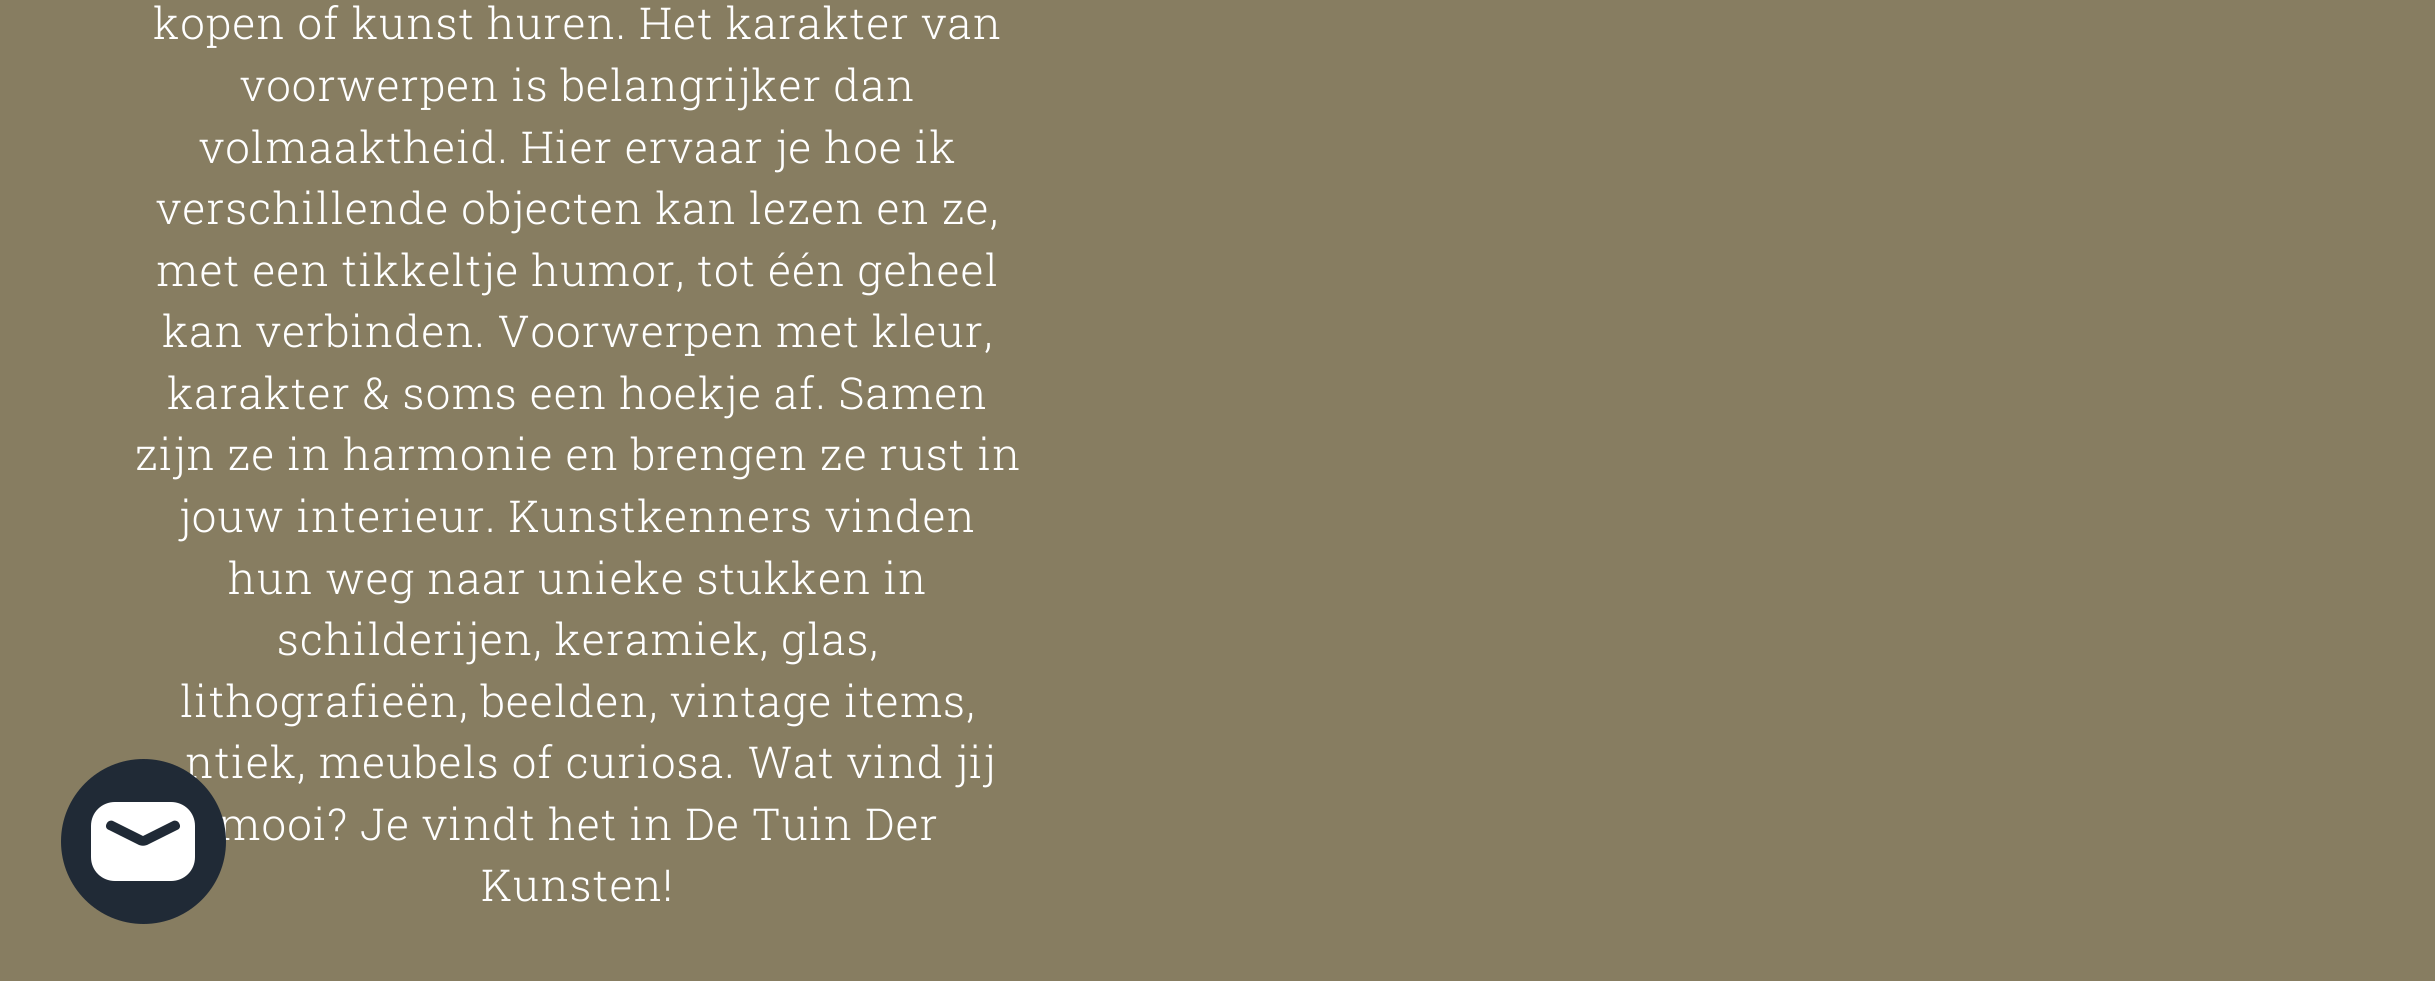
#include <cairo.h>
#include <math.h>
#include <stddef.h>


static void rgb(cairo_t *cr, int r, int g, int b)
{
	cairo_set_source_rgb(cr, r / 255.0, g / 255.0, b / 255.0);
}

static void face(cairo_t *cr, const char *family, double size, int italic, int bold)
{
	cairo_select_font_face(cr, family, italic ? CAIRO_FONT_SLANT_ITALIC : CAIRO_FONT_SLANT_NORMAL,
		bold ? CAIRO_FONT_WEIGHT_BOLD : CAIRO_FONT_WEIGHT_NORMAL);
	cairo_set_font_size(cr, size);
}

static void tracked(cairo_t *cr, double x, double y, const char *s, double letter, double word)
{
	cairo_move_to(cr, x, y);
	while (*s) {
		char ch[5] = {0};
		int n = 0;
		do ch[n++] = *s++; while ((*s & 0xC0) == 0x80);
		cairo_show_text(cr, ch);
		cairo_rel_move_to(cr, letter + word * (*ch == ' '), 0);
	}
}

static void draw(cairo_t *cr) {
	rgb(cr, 135, 125, 97);
	cairo_paint(cr);
	face(cr, "Roboto Slab Light", 44, 0, 0);
	rgb(cr, 255, 255, 255);
	tracked(cr, 153, 39, "kopen of kunst huren. Het karakter van", 1.1, 0);
	tracked(cr, 240, 101, "voorwerpen is belangrijker dan", 1.1, 0);
	tracked(cr, 199, 163, "volmaaktheid. Hier ervaar je hoe ik", 1.1, 0);
	tracked(cr, 156, 224, "verschillende objecten kan lezen en ze,", 1.1, 0);
	tracked(cr, 156, 286, "met een tikkeltje humor, tot één geheel", 1.1, 0);
	tracked(cr, 162, 347, "kan verbinden. Voorwerpen met kleur,", 1.1, 0);
	tracked(cr, 167, 409, "karakter & soms een hoekje af. Samen", 1.1, 0);
	tracked(cr, 135, 470, "zijn ze in harmonie en brengen ze rust in", 1.1, 0);
	tracked(cr, 179, 532, "jouw interieur. Kunstkenners vinden", 1.1, 0);
	tracked(cr, 228, 594, "hun weg naar unieke stukken in", 1.1, 0);
	tracked(cr, 277, 655, "schilderijen, keramiek, glas,", 1.1, 0);
	tracked(cr, 180, 717, "lithografieën, beelden, vintage items,", 1.1, 0);
	tracked(cr, 185, 778, "ntiek, meubels of curiosa. Wat vind jij", 1.1, 0);
	tracked(cr, 218, 840, "mooi? Je vindt het in De Tuin Der", 1.1, 0);
	tracked(cr, 481, 901, "Kunsten!", 1.1, 0);
	rgb(cr, 32, 42, 54);
	cairo_new_path(cr);
	cairo_arc(cr, 143.5, 841.5, 82.5, 0, 2 * M_PI);
	cairo_fill(cr);
	rgb(cr, 255, 255, 255);
	cairo_set_fill_rule(cr, CAIRO_FILL_RULE_EVEN_ODD);
	cairo_new_path(cr);
	cairo_move_to(cr, 115, 802);
	cairo_curve_to(cr, 102, 802, 91, 812, 91, 826);
	cairo_line_to(cr, 91, 857);
	cairo_curve_to(cr, 91, 871, 102, 881, 115, 881);
	cairo_line_to(cr, 171, 881);
	cairo_curve_to(cr, 184, 881, 195, 871, 195, 857);
	cairo_line_to(cr, 195, 826);
	cairo_curve_to(cr, 195, 812, 184, 802, 171, 802);
	cairo_close_path(cr);
	cairo_move_to(cr, 113, 821);
	cairo_curve_to(cr, 111, 820, 108, 821, 107, 823);
	cairo_curve_to(cr, 105, 826, 106, 829, 109, 830);
	cairo_line_to(cr, 139, 845);
	cairo_curve_to(cr, 142, 846, 144, 846, 147, 845);
	cairo_line_to(cr, 177, 830);
	cairo_curve_to(cr, 180, 829, 181, 826, 179, 823);
	cairo_curve_to(cr, 178, 821, 175, 820, 173, 821);
	cairo_line_to(cr, 143, 836);
	cairo_close_path(cr);
	cairo_fill(cr);
}

int main(void) {
	cairo_surface_t *surface = cairo_image_surface_create(CAIRO_FORMAT_RGB24, 2435, 981);
	cairo_t *cr = cairo_create(surface);
	cairo_font_options_t *options = cairo_font_options_create();
	cairo_font_options_set_hint_metrics(options, CAIRO_HINT_METRICS_OFF);
	cairo_font_options_set_hint_style(options, CAIRO_HINT_STYLE_NONE);
	cairo_set_font_options(cr, options);
	cairo_set_miter_limit(cr, 4);
	draw(cr);
	cairo_surface_write_to_png(surface, "render.png");
	cairo_font_options_destroy(options);
	cairo_destroy(cr);
	cairo_surface_destroy(surface);
	return 0;
}
